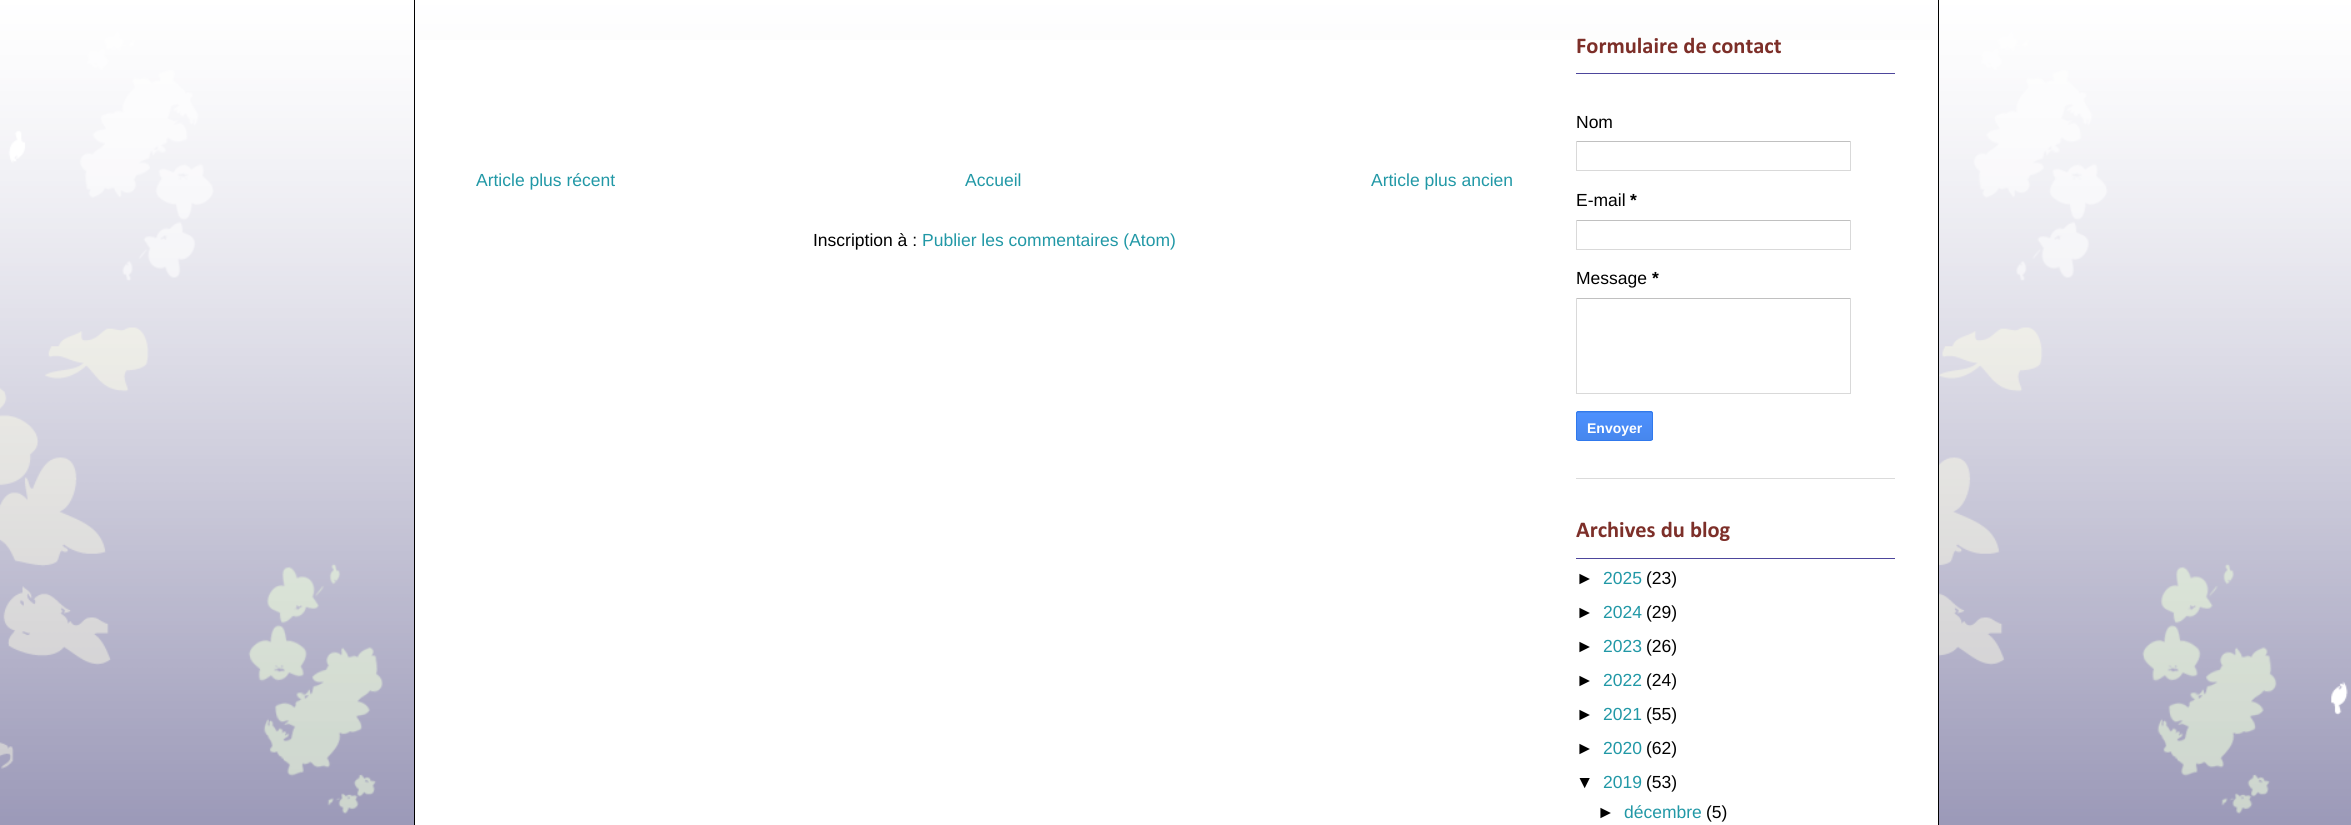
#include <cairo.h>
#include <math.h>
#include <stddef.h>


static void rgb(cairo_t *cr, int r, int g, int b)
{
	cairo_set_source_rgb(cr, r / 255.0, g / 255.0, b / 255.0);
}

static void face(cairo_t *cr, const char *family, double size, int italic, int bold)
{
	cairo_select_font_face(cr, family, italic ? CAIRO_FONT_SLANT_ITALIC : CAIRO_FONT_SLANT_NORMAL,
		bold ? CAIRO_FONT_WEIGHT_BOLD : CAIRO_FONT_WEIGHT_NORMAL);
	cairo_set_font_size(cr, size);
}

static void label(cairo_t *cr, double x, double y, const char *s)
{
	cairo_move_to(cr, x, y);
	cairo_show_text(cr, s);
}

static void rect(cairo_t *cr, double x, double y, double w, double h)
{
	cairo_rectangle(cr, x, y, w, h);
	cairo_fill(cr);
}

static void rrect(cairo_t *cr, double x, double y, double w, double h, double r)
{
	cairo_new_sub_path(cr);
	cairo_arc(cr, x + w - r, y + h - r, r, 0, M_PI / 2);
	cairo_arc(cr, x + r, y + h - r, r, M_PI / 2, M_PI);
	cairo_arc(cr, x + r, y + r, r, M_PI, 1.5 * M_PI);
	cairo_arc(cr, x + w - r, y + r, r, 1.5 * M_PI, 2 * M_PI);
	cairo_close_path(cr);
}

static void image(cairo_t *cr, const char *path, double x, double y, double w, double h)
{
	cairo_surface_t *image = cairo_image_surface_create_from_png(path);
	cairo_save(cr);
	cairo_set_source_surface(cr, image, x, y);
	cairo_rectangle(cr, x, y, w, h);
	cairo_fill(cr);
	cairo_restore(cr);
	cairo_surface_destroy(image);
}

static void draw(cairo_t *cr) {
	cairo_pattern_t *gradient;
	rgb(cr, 116, 113, 156);
	cairo_paint(cr);
	image(cr, "image0.png", 0, 0, 2351, 825);
	rgb(cr, 255, 255, 255);
	rect(cr, 415, 40, 1523, 785);
	rgb(cr, 0, 0, 0);
	rect(cr, 1938, 0, 1, 825);
	rect(cr, 414, 0, 1, 825);
	face(cr, "Liberation Sans", 17.5, 0, 0);
	rgb(cr, 33, 152, 166);
	label(cr, 476, 186, "Article plus récent");
	label(cr, 965, 186, "Accueil");
	label(cr, 1371, 186, "Article plus ancien");
	rgb(cr, 0, 0, 0);
	label(cr, 813, 246, "Inscription à :");
	rgb(cr, 33, 152, 166);
	label(cr, 922, 246, "Publier les commentaires (Atom)");
	rgb(cr, 219, 219, 219);
	rect(cr, 1576, 478, 319, 1);
	rgb(cr, 77, 70, 156);
	rect(cr, 1576, 73, 319, 1);
	face(cr, "Calibri", 22.5, 0, 1);
	rgb(cr, 125, 47, 41);
	label(cr, 1576, 53, "Formulaire de contact");
	face(cr, "Liberation Sans", 17.5, 0, 0);
	rgb(cr, 0, 0, 0);
	label(cr, 1576, 128, "Nom");
	rgb(cr, 192, 192, 192);
	rect(cr, 1576, 141, 275, 1);
	rgb(cr, 217, 217, 217);
	rect(cr, 1850, 141, 1, 30);
	rect(cr, 1576, 170, 275, 1);
	rect(cr, 1576, 141, 1, 30);
	rgb(cr, 0, 0, 0);
	label(cr, 1576, 206, "E-mail");
	face(cr, "Liberation Sans", 17.5, 0, 1);
	label(cr, 1630, 206, "*");
	rgb(cr, 192, 192, 192);
	rect(cr, 1576, 220, 275, 1);
	rgb(cr, 217, 217, 217);
	rect(cr, 1850, 220, 1, 30);
	rect(cr, 1576, 249, 275, 1);
	rect(cr, 1576, 220, 1, 30);
	face(cr, "Liberation Sans", 17.5, 0, 0);
	rgb(cr, 0, 0, 0);
	label(cr, 1576, 284, "Message");
	face(cr, "Liberation Sans", 17.5, 0, 1);
	label(cr, 1652, 284, "*");
	rgb(cr, 192, 192, 192);
	rect(cr, 1576, 298, 275, 1);
	rgb(cr, 217, 217, 217);
	rect(cr, 1850, 298, 1, 96);
	rect(cr, 1576, 393, 275, 1);
	rect(cr, 1576, 298, 1, 96);
	cairo_save(cr);
	rrect(cr, 1576, 411, 77, 30, 2.5);
	cairo_clip(cr);
	gradient = cairo_pattern_create_linear(1614, 385, 1614, 413);
	cairo_pattern_add_color_stop_rgba(gradient, 0, 0.302, 0.565, 0.996, 1);
	cairo_pattern_add_color_stop_rgba(gradient, 1, 0.278, 0.529, 0.929, 1);
	cairo_set_source(cr, gradient);
	cairo_pattern_destroy(gradient);
	rect(cr, 1576, 411, 77, 2);
	cairo_restore(cr);
	gradient = cairo_pattern_create_linear(1614, 413, 1614, 440);
	cairo_pattern_add_color_stop_rgba(gradient, 0, 0.302, 0.565, 0.996, 1);
	cairo_pattern_add_color_stop_rgba(gradient, 1, 0.278, 0.529, 0.929, 1);
	cairo_set_source(cr, gradient);
	cairo_pattern_destroy(gradient);
	rect(cr, 1576, 413, 77, 27);
	rrect(cr, 1576.5, 411.5, 76, 29, 2);
	rgb(cr, 48, 121, 237);
	cairo_set_line_width(cr, 1);
	cairo_stroke(cr);
	face(cr, "Liberation Sans", 14, 0, 1);
	rgb(cr, 255, 255, 255);
	label(cr, 1587, 433, "Envoyer");
	rgb(cr, 77, 70, 156);
	rect(cr, 1576, 558, 319, 1);
	face(cr, "Calibri", 22.5, 0, 1);
	rgb(cr, 125, 47, 41);
	label(cr, 1576, 537, "Archives du blog");
	face(cr, "Liberation Sans", 17.5, 0, 0);
	rgb(cr, 0, 0, 0);
	label(cr, 1576, 584, "►");
	rgb(cr, 33, 152, 166);
	label(cr, 1603, 584, "2025");
	rgb(cr, 0, 0, 0);
	label(cr, 1646, 584, "(23)");
	label(cr, 1576, 618, "►");
	rgb(cr, 33, 152, 166);
	label(cr, 1603, 618, "2024");
	rgb(cr, 0, 0, 0);
	label(cr, 1646, 618, "(29)");
	label(cr, 1576, 652, "►");
	rgb(cr, 33, 152, 166);
	label(cr, 1603, 652, "2023");
	rgb(cr, 0, 0, 0);
	label(cr, 1646, 652, "(26)");
	label(cr, 1576, 686, "►");
	rgb(cr, 33, 152, 166);
	label(cr, 1603, 686, "2022");
	rgb(cr, 0, 0, 0);
	label(cr, 1646, 686, "(24)");
	label(cr, 1576, 720, "►");
	rgb(cr, 33, 152, 166);
	label(cr, 1603, 720, "2021");
	rgb(cr, 0, 0, 0);
	label(cr, 1646, 720, "(55)");
	label(cr, 1576, 754, "►");
	rgb(cr, 33, 152, 166);
	label(cr, 1603, 754, "2020");
	rgb(cr, 0, 0, 0);
	label(cr, 1646, 754, "(62)");
	label(cr, 1576, 788, "▼");
	rgb(cr, 33, 152, 166);
	label(cr, 1603, 788, "2019");
	rgb(cr, 0, 0, 0);
	label(cr, 1646, 788, "(53)");
	label(cr, 1597, 818, "►");
	rgb(cr, 33, 152, 166);
	label(cr, 1624, 818, "décembre");
	rgb(cr, 0, 0, 0);
	label(cr, 1706, 818, "(5)");
}

int main(void) {
	cairo_surface_t *surface = cairo_image_surface_create(CAIRO_FORMAT_RGB24, 2351, 825);
	cairo_t *cr = cairo_create(surface);
	cairo_font_options_t *options = cairo_font_options_create();
	cairo_font_options_set_hint_metrics(options, CAIRO_HINT_METRICS_OFF);
	cairo_font_options_set_hint_style(options, CAIRO_HINT_STYLE_NONE);
	cairo_set_font_options(cr, options);
	cairo_set_miter_limit(cr, 4);
	draw(cr);
	cairo_surface_write_to_png(surface, "render.png");
	cairo_font_options_destroy(options);
	cairo_destroy(cr);
	cairo_surface_destroy(surface);
	return 0;
}
